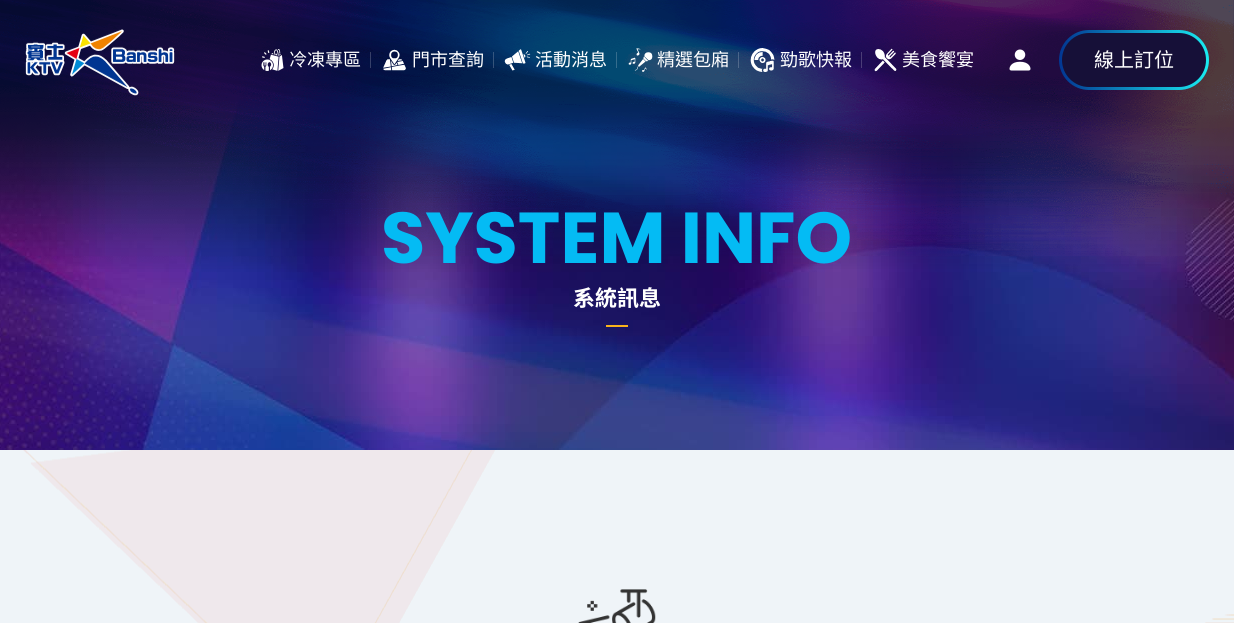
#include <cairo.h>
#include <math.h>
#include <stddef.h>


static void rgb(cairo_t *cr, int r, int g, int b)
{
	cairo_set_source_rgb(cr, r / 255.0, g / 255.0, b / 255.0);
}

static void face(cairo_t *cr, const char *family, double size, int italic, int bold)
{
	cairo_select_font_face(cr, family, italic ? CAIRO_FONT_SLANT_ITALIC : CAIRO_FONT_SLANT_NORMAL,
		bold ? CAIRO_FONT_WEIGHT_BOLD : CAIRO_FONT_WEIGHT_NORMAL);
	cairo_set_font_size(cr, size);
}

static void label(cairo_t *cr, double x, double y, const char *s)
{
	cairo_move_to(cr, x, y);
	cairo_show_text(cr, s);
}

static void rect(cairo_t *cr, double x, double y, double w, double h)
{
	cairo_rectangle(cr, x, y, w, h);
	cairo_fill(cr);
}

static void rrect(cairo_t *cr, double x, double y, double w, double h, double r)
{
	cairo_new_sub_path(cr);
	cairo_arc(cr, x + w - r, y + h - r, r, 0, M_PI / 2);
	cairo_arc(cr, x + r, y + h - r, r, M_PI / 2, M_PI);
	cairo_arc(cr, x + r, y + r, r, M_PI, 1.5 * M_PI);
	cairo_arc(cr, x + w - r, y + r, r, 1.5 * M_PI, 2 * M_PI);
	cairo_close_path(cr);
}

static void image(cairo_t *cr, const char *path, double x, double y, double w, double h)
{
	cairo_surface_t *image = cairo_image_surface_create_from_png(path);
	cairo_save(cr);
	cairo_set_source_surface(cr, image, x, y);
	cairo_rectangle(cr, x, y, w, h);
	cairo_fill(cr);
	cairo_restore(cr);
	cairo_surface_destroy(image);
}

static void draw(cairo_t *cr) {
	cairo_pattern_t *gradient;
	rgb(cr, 239, 244, 248);
	cairo_paint(cr);
	image(cr, "image8.png", 0, 0, 1234, 450);
	image(cr, "image9.png", 0, 0, 1234, 269);
	image(cr, "image0.png", 25, 29, 150, 67);
	image(cr, "image1.png", 261, 49, 23, 22);
	face(cr, "Noto Sans TC", 18, 0, 0);
	rgb(cr, 255, 255, 255);
	label(cr, 289, 66, "冷凍專區");
	cairo_set_source_rgba(cr, 1, 1, 1, 0.2);
	rect(cr, 370, 52, 1, 16);
	image(cr, "image2.png", 383, 49, 23, 22);
	rgb(cr, 255, 255, 255);
	label(cr, 412, 66, "門市查詢");
	cairo_set_source_rgba(cr, 1, 1, 1, 0.2);
	rect(cr, 493, 52, 1, 16);
	image(cr, "image3.png", 504, 49, 27, 22);
	rgb(cr, 255, 255, 255);
	label(cr, 535, 66, "活動消息");
	rgb(cr, 53, 109, 141);
	rect(cr, 616, 52, 1, 16);
	image(cr, "image4.png", 628, 48, 25, 24);
	rgb(cr, 255, 255, 255);
	label(cr, 657, 66, "精選包廂");
	cairo_set_source_rgba(cr, 1, 1, 1, 0.2);
	rect(cr, 738, 52, 1, 16);
	image(cr, "image5.png", 750, 48, 25, 24);
	rgb(cr, 255, 255, 255);
	label(cr, 780, 66, "勁歌快報");
	cairo_set_source_rgba(cr, 1, 1, 1, 0.2);
	rect(cr, 861, 52, 1, 16);
	image(cr, "image6.png", 874, 48, 23, 24);
	rgb(cr, 255, 255, 255);
	label(cr, 902, 66, "美食饗宴");
	image(cr, "image7.png", 1009, 49, 22, 22);
	gradient = cairo_pattern_create_linear(1059, 60, 1209, 60);
	cairo_pattern_add_color_stop_rgba(gradient, 0, 0.008, 0.212, 0.573, 1);
	cairo_pattern_add_color_stop_rgba(gradient, 1, 0.098, 0.925, 0.945, 1);
	cairo_set_source(cr, gradient);
	cairo_pattern_destroy(gradient);
	rrect(cr, 1059, 30, 150, 60, 30);
	cairo_fill(cr);
	rgb(cr, 22, 16, 56);
	rrect(cr, 1062, 33, 144, 54, 27);
	cairo_fill(cr);
	face(cr, "Noto Sans TC", 20, 0, 0);
	rgb(cr, 255, 255, 255);
	label(cr, 1094, 67, "線上訂位");
	face(cr, "Poppins", 72, 0, 1);
	rgb(cr, 4, 187, 244);
	label(cr, 381, 263, "SYSTEM INFO");
	face(cr, "Noto Sans TC", 22, 0, 1);
	rgb(cr, 255, 255, 255);
	label(cr, 573, 306, "系統訊息");
	rgb(cr, 249, 179, 28);
	rect(cr, 606, 325, 22, 2);
	image(cr, "image10.png", 23, 450, 1211, 173);
	image(cr, "image11.png", 578, 589, 78, 34);
}

int main(void) {
	cairo_surface_t *surface = cairo_image_surface_create(CAIRO_FORMAT_RGB24, 1234, 623);
	cairo_t *cr = cairo_create(surface);
	cairo_font_options_t *options = cairo_font_options_create();
	cairo_font_options_set_hint_metrics(options, CAIRO_HINT_METRICS_OFF);
	cairo_font_options_set_hint_style(options, CAIRO_HINT_STYLE_NONE);
	cairo_set_font_options(cr, options);
	cairo_set_miter_limit(cr, 4);
	draw(cr);
	cairo_surface_write_to_png(surface, "render.png");
	cairo_font_options_destroy(options);
	cairo_destroy(cr);
	cairo_surface_destroy(surface);
	return 0;
}
